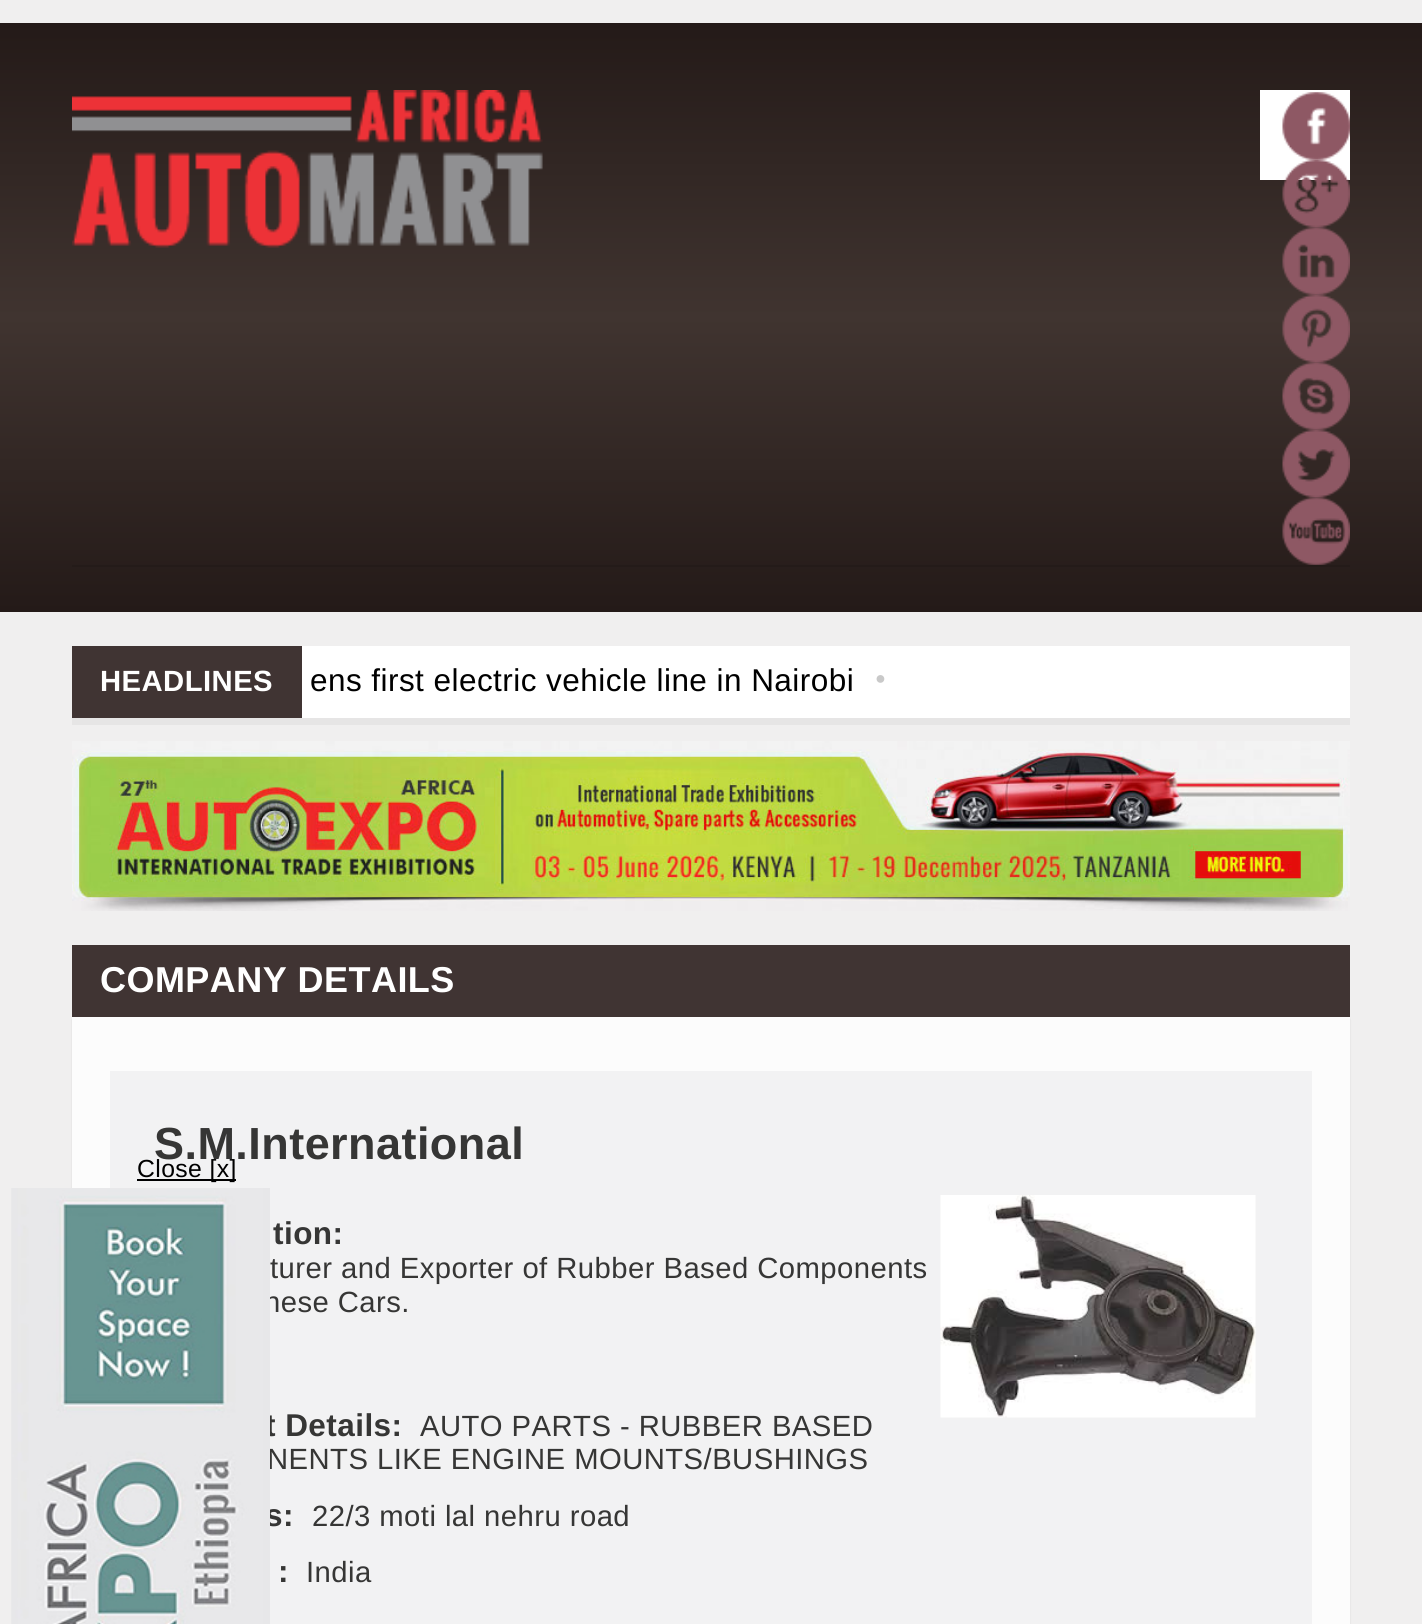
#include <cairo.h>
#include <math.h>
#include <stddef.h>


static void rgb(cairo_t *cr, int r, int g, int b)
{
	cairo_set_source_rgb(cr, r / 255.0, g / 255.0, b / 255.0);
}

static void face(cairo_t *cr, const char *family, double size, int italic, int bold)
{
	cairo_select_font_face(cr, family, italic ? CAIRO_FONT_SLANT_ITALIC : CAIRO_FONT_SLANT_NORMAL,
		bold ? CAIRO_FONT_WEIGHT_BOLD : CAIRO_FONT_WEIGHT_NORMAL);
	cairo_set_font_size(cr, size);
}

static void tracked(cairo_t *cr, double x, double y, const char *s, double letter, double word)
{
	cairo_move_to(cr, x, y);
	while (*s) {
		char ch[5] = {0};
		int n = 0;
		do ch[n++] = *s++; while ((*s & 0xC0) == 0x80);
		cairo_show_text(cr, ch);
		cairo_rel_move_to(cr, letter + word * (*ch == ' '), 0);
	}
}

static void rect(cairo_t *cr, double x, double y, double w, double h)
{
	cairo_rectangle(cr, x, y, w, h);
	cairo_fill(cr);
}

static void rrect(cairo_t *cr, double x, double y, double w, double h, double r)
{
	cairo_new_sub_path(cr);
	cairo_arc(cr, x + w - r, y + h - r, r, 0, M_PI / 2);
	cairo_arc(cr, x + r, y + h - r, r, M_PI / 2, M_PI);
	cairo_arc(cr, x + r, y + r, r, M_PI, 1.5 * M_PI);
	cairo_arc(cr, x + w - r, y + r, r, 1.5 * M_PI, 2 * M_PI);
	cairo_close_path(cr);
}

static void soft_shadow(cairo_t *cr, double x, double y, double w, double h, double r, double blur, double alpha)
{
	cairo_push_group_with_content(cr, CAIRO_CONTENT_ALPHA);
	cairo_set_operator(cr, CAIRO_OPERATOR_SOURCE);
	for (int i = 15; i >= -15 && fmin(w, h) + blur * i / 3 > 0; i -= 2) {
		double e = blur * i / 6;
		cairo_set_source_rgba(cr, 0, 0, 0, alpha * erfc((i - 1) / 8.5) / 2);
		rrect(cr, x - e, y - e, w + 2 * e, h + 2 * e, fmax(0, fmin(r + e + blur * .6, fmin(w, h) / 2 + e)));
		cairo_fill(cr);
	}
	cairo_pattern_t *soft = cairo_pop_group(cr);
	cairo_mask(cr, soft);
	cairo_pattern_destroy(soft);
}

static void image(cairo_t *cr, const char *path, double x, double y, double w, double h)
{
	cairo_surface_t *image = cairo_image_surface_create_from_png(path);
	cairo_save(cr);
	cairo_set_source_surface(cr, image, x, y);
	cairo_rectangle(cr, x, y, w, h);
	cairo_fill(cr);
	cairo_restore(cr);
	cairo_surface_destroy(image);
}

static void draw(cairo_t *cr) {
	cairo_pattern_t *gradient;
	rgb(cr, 240, 239, 239);
	cairo_paint(cr);
	gradient = cairo_pattern_create_linear(711, 22, 711, 612);
	cairo_pattern_add_color_stop_rgba(gradient, 0, 0.141, 0.102, 0.094, 1);
	cairo_pattern_add_color_stop_rgba(gradient, 0.5, 0.251, 0.204, 0.188, 1);
	cairo_pattern_add_color_stop_rgba(gradient, 1, 0.141, 0.102, 0.094, 1);
	cairo_set_source(cr, gradient);
	cairo_pattern_destroy(gradient);
	rect(cr, 0, 23, 1422, 589);
	image(cr, "image0.png", 72, 90, 471, 158);
	rgb(cr, 255, 255, 255);
	rect(cr, 1260, 90, 90, 90);
	image(cr, "image1.png", 1282, 92, 68, 68);
	image(cr, "image2.png", 1282, 159, 68, 69);
	image(cr, "image3.png", 1282, 227, 68, 68);
	image(cr, "image4.png", 1282, 294, 68, 69);
	image(cr, "image5.png", 1282, 362, 68, 68);
	image(cr, "image6.png", 1282, 429, 68, 69);
	image(cr, "image7.png", 1282, 497, 68, 68);
	rgb(cr, 36, 27, 25);
	rect(cr, 72, 565, 1278, 2);
	rgb(cr, 230, 229, 229);
	rect(cr, 72, 718, 1278, 7);
	rgb(cr, 255, 255, 255);
	rect(cr, 302, 646, 1048, 72);
	rgb(cr, 64, 52, 51);
	rect(cr, 72, 646, 230, 72);
	face(cr, "Liberation Sans", 29.25, 0, 1);
	rgb(cr, 255, 255, 255);
	tracked(cr, 100, 691, "HEADLINES", 0.45, 0);
	face(cr, "Liberation Sans", 31.5, 0, 0);
	rgb(cr, 0, 0, 0);
	tracked(cr, 310, 691, "ens first electric vehicle line in Nairobi", 0.45, 0);
	face(cr, "Liberation Serif", 18, 0, 0);
	rgb(cr, 201, 201, 201);
	tracked(cr, 875, 684, "●", 0.45, 0);
	image(cr, "image8.png", 72, 741, 1278, 170);
	rgb(cr, 64, 52, 51);
	rect(cr, 72, 945, 1278, 72);
	face(cr, "Liberation Sans", 36, 0, 1);
	rgb(cr, 255, 255, 255);
	tracked(cr, 100, 992, "COMPANY DETAILS", 0.45, 0);
	rgb(cr, 0, 0, 0);
	soft_shadow(cr, 72, 1019, 1278, 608, 0, 1, 0.08);
	rgb(cr, 252, 252, 252);
	rect(cr, 72, 1017, 1278, 607);
	rgb(cr, 242, 242, 243);
	rect(cr, 110, 1071, 1202, 553);
	face(cr, "Liberation Sans", 45, 0, 1);
	rgb(cr, 54, 54, 53);
	tracked(cr, 154, 1159, "S.M.International", 0.45, 0);
	face(cr, "Liberation Sans", 31.5, 0, 1);
	tracked(cr, 273, 1244, "tion:", 0.45, 0);
	face(cr, "Liberation Sans", 29.25, 0, 0);
	tracked(cr, 270, 1278, "turer and Exporter of Rubber Based Components", 0.45, 0);
	tracked(cr, 264, 1312, "nese Cars.", 0.45, 0);
	image(cr, "image9.png", 940, 1195, 316, 223);
	face(cr, "Liberation Sans", 31.5, 0, 1);
	tracked(cr, 265, 1436, "t Details:", 0.45, 0);
	face(cr, "Liberation Sans", 29.25, 0, 0);
	tracked(cr, 420, 1436, "AUTO PARTS - RUBBER BASED", 0.45, 0);
	tracked(cr, 267, 1469, "NENTS LIKE ENGINE MOUNTS/BUSHINGS", 0.45, 0);
	face(cr, "Liberation Sans", 31.5, 0, 1);
	tracked(cr, 265, 1526, "s:", 0.45, 0);
	face(cr, "Liberation Sans", 29.25, 0, 0);
	tracked(cr, 312, 1526, "22/3 moti lal nehru road", 0.45, 0);
	face(cr, "Liberation Sans", 31.5, 0, 1);
	tracked(cr, 278, 1582, ":", 0.45, 0);
	face(cr, "Liberation Sans", 29.25, 0, 0);
	tracked(cr, 306, 1582, "India", 0.45, 0);
	rgb(cr, 0, 0, 0);
	rect(cr, 137, 1179, 99, 2);
	face(cr, "Liberation Sans", 24.75, 0, 0);
	tracked(cr, 137, 1177, "Close [x]", 0.4, 0);
	image(cr, "image10.png", 11, 1188, 259, 436);
}

int main(void) {
	cairo_surface_t *surface = cairo_image_surface_create(CAIRO_FORMAT_RGB24, 1422, 1624);
	cairo_t *cr = cairo_create(surface);
	cairo_font_options_t *options = cairo_font_options_create();
	cairo_font_options_set_hint_metrics(options, CAIRO_HINT_METRICS_OFF);
	cairo_font_options_set_hint_style(options, CAIRO_HINT_STYLE_NONE);
	cairo_set_font_options(cr, options);
	cairo_set_miter_limit(cr, 4);
	draw(cr);
	cairo_surface_write_to_png(surface, "render.png");
	cairo_font_options_destroy(options);
	cairo_destroy(cr);
	cairo_surface_destroy(surface);
	return 0;
}
